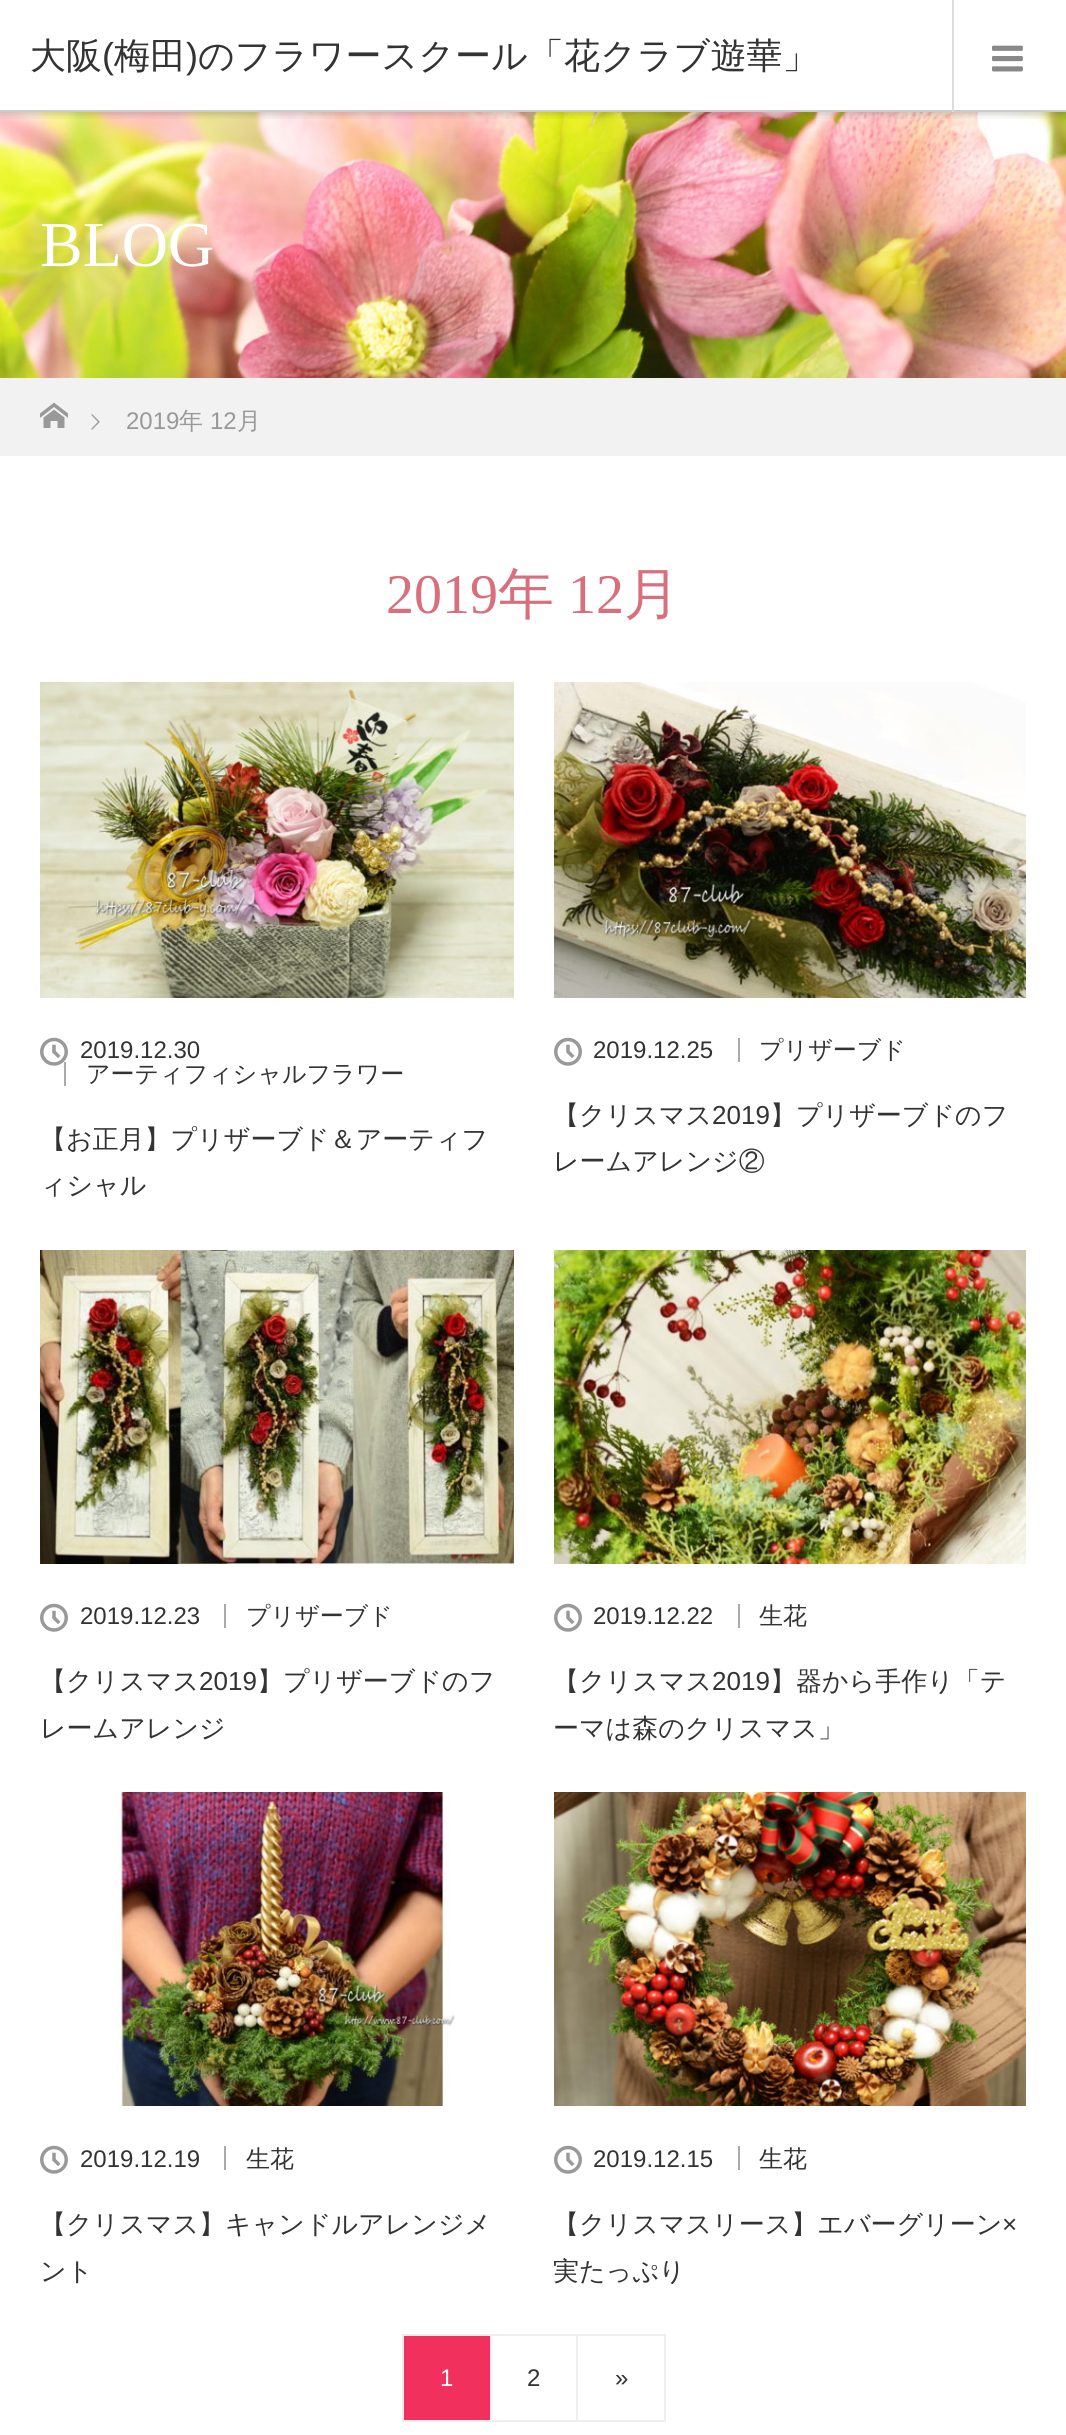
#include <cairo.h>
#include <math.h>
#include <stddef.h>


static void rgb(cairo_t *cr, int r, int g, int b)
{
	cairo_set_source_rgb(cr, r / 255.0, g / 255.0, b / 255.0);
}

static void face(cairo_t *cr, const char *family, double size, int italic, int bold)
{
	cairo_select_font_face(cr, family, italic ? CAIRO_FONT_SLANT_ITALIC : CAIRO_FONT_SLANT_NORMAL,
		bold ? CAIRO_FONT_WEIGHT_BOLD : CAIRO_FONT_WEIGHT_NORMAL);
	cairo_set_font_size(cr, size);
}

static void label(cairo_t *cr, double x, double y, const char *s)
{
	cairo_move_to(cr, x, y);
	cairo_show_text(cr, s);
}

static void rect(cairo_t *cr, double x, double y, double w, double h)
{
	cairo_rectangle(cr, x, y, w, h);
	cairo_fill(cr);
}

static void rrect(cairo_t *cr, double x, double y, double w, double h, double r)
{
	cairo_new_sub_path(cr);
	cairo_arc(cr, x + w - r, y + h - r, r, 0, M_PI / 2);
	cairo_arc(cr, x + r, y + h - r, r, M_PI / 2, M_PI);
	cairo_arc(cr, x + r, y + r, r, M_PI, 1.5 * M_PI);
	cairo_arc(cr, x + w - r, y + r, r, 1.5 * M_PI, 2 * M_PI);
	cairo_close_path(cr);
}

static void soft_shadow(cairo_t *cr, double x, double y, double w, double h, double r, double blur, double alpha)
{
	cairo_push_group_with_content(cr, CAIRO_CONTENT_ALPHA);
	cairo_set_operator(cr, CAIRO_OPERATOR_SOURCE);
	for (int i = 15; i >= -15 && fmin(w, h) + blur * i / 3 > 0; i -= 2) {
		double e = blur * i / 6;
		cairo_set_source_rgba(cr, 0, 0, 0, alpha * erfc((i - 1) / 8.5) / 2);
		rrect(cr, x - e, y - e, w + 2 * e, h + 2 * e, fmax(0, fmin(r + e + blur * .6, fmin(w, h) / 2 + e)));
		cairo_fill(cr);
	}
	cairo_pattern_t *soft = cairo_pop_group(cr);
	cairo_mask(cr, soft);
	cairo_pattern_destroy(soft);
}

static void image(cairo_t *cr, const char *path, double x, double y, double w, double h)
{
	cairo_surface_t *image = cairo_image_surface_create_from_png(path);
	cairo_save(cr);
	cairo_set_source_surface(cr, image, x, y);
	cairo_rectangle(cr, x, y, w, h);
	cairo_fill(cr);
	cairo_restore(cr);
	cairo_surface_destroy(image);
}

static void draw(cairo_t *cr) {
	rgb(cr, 255, 255, 255);
	cairo_paint(cr);
	image(cr, "image1.png", 0, 112, 1066, 266);
	cairo_save(cr);
	cairo_rectangle(cr, 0, 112, 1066, 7);
	cairo_clip(cr);
	rgb(cr, 0, 0, 0);
	soft_shadow(cr, 0, 2, 1066, 112, 0, 4, 0.2);
	cairo_restore(cr);
	rgb(cr, 204, 204, 204);
	rect(cr, 0, 110, 1066, 2);
	face(cr, "WenQuanYi Zen Hei Medium", 36, 0, 0);
	rgb(cr, 51, 51, 51);
	label(cr, 30, 68, "大阪");
	face(cr, "Liberation Sans", 36, 0, 0);
	label(cr, 102, 68, "(");
	face(cr, "WenQuanYi Zen Hei Medium", 36, 0, 0);
	label(cr, 114, 68, "梅田");
	face(cr, "Liberation Sans", 36, 0, 0);
	label(cr, 186, 68, ")");
	face(cr, "WenQuanYi Zen Hei Medium", 36, 0, 0);
	label(cr, 198, 68, "のフラワースクール「花クラブ遊華」");
	rgb(cr, 221, 221, 221);
	rect(cr, 952, 0, 2, 112);
	image(cr, "image0.png", 992, 45, 31, 27);
	face(cr, "Liberation Serif", 64, 0, 0);
	rgb(cr, 255, 255, 255);
	label(cr, 40, 266, "BLOG");
	rgb(cr, 242, 242, 242);
	rect(cr, 0, 378, 1066, 78);
	image(cr, "image2.png", 40, 402, 28, 26);
	image(cr, "image3.png", 91, 414, 9, 16);
	face(cr, "Liberation Sans", 24, 0, 0);
	rgb(cr, 153, 153, 153);
	label(cr, 126, 429, "2019");
	face(cr, "WenQuanYi Zen Hei Medium", 24, 0, 0);
	label(cr, 179, 429, "年");
	face(cr, "Liberation Sans", 24, 0, 0);
	label(cr, 210, 429, "12");
	face(cr, "WenQuanYi Zen Hei Medium", 24, 0, 0);
	label(cr, 237, 429, "月");
	face(cr, "Liberation Serif", 56, 0, 0);
	rgb(cr, 216, 111, 124);
	label(cr, 386, 613, "2019");
	face(cr, "WenQuanYi Zen Hei Medium", 56, 0, 0);
	label(cr, 498, 613, "年");
	face(cr, "Liberation Serif", 56, 0, 0);
	label(cr, 568, 613, "12");
	face(cr, "WenQuanYi Zen Hei Medium", 56, 0, 0);
	label(cr, 624, 613, "月");
	image(cr, "image4.png", 40, 682, 474, 316);
	rgb(cr, 170, 170, 170);
	rect(cr, 64, 1062, 2, 24);
	image(cr, "image5.png", 40, 1037, 28, 29);
	face(cr, "Liberation Sans", 24, 0, 0);
	rgb(cr, 51, 51, 51);
	label(cr, 80, 1058, "2019.12.30");
	face(cr, "WenQuanYi Zen Hei Medium", 24, 0, 0);
	label(cr, 86, 1082, "アーティフィシャルフラワー");
	face(cr, "WenQuanYi Zen Hei Medium", 26, 0, 0);
	label(cr, 40, 1148, "【お正月】プリザーブド＆アーティフ");
	label(cr, 40, 1194, "ィシャル");
	image(cr, "image6.png", 554, 682, 472, 316);
	image(cr, "image7.png", 554, 1037, 28, 29);
	face(cr, "Liberation Sans", 24, 0, 0);
	label(cr, 593, 1058, "2019.12.25");
	rgb(cr, 170, 170, 170);
	rect(cr, 738, 1038, 2, 24);
	face(cr, "WenQuanYi Zen Hei Medium", 24, 0, 0);
	rgb(cr, 51, 51, 51);
	label(cr, 759, 1058, "プリザーブド");
	face(cr, "WenQuanYi Zen Hei Medium", 26, 0, 0);
	label(cr, 553, 1124, "【クリスマス");
	face(cr, "Liberation Sans", 26, 0, 0);
	label(cr, 712, 1124, "2019");
	face(cr, "WenQuanYi Zen Hei Medium", 26, 0, 0);
	label(cr, 770, 1124, "】プリザーブドのフ");
	label(cr, 553, 1170, "レームアレンジ②");
	image(cr, "image8.png", 40, 1250, 474, 314);
	image(cr, "image7.png", 40, 1603, 28, 29);
	face(cr, "Liberation Sans", 24, 0, 0);
	label(cr, 80, 1624, "2019.12.23");
	rgb(cr, 170, 170, 170);
	rect(cr, 224, 1604, 2, 24);
	face(cr, "WenQuanYi Zen Hei Medium", 24, 0, 0);
	rgb(cr, 51, 51, 51);
	label(cr, 246, 1624, "プリザーブド");
	face(cr, "WenQuanYi Zen Hei Medium", 26, 0, 0);
	label(cr, 40, 1690, "【クリスマス");
	face(cr, "Liberation Sans", 26, 0, 0);
	label(cr, 199, 1690, "2019");
	face(cr, "WenQuanYi Zen Hei Medium", 26, 0, 0);
	label(cr, 257, 1690, "】プリザーブドのフ");
	label(cr, 40, 1737, "レームアレンジ");
	image(cr, "image9.png", 554, 1250, 472, 314);
	image(cr, "image7.png", 554, 1603, 28, 29);
	face(cr, "Liberation Sans", 24, 0, 0);
	label(cr, 593, 1624, "2019.12.22");
	rgb(cr, 170, 170, 170);
	rect(cr, 738, 1604, 2, 24);
	face(cr, "WenQuanYi Zen Hei Medium", 24, 0, 0);
	rgb(cr, 51, 51, 51);
	label(cr, 759, 1624, "生花");
	face(cr, "WenQuanYi Zen Hei Medium", 26, 0, 0);
	label(cr, 553, 1690, "【クリスマス");
	face(cr, "Liberation Sans", 26, 0, 0);
	label(cr, 712, 1690, "2019");
	face(cr, "WenQuanYi Zen Hei Medium", 26, 0, 0);
	label(cr, 770, 1690, "】器から手作り「テ");
	label(cr, 553, 1737, "ーマは森のクリスマス」");
	image(cr, "image10.png", 116, 1792, 339, 314);
	image(cr, "image7.png", 40, 2145, 28, 29);
	face(cr, "Liberation Sans", 24, 0, 0);
	label(cr, 80, 2167, "2019.12.19");
	rgb(cr, 170, 170, 170);
	rect(cr, 224, 2146, 2, 24);
	face(cr, "WenQuanYi Zen Hei Medium", 24, 0, 0);
	rgb(cr, 51, 51, 51);
	label(cr, 246, 2167, "生花");
	face(cr, "WenQuanYi Zen Hei Medium", 26, 0, 0);
	label(cr, 40, 2233, "【クリスマス】キャンドルアレンジメ");
	label(cr, 40, 2280, "ント");
	image(cr, "image11.png", 554, 1792, 472, 314);
	image(cr, "image7.png", 554, 2145, 28, 29);
	face(cr, "Liberation Sans", 24, 0, 0);
	label(cr, 593, 2167, "2019.12.15");
	rgb(cr, 170, 170, 170);
	rect(cr, 738, 2146, 2, 24);
	face(cr, "WenQuanYi Zen Hei Medium", 24, 0, 0);
	rgb(cr, 51, 51, 51);
	label(cr, 759, 2167, "生花");
	face(cr, "WenQuanYi Zen Hei Medium", 26, 0, 0);
	label(cr, 553, 2233, "【クリスマスリース】エバーグリーン");
	face(cr, "Liberation Sans", 26, 0, 0);
	label(cr, 1002, 2233, "×");
	face(cr, "WenQuanYi Zen Hei Medium", 26, 0, 0);
	label(cr, 553, 2280, "実たっぷり");
	rgb(cr, 242, 48, 94);
	cairo_rectangle(cr, 403, 2335, 88, 86);
	cairo_fill_preserve(cr);
	rgb(cr, 239, 239, 239);
	cairo_stroke(cr);
	face(cr, "Liberation Sans", 24, 0, 0);
	rgb(cr, 255, 255, 255);
	label(cr, 440, 2386, "1");
	cairo_rectangle(cr, 491, 2335, 86, 86);
	rgb(cr, 239, 239, 239);
	cairo_stroke(cr);
	rgb(cr, 51, 51, 51);
	label(cr, 527, 2386, "2");
	cairo_rectangle(cr, 577, 2335, 88, 86);
	rgb(cr, 239, 239, 239);
	cairo_stroke(cr);
	rgb(cr, 51, 51, 51);
	label(cr, 615, 2386, "»");
}

int main(void) {
	cairo_surface_t *surface = cairo_image_surface_create(CAIRO_FORMAT_RGB24, 1066, 2435);
	cairo_t *cr = cairo_create(surface);
	cairo_font_options_t *options = cairo_font_options_create();
	cairo_font_options_set_hint_metrics(options, CAIRO_HINT_METRICS_OFF);
	cairo_font_options_set_hint_style(options, CAIRO_HINT_STYLE_NONE);
	cairo_set_font_options(cr, options);
	cairo_set_miter_limit(cr, 4);
	draw(cr);
	cairo_surface_write_to_png(surface, "render.png");
	cairo_font_options_destroy(options);
	cairo_destroy(cr);
	cairo_surface_destroy(surface);
	return 0;
}
